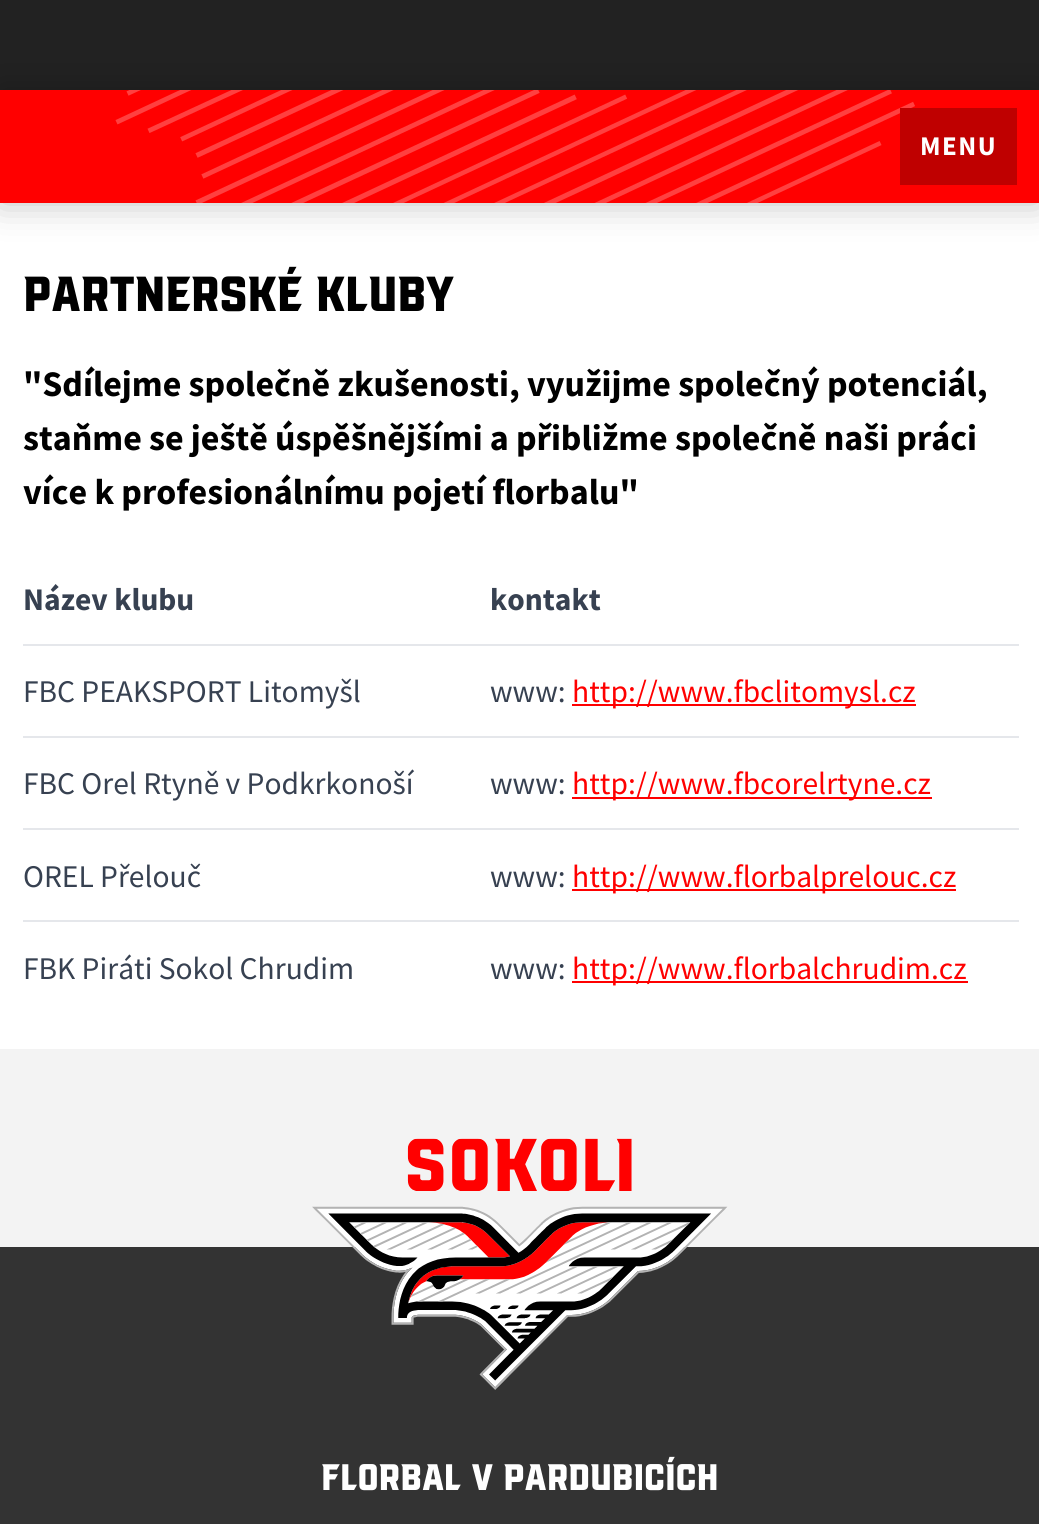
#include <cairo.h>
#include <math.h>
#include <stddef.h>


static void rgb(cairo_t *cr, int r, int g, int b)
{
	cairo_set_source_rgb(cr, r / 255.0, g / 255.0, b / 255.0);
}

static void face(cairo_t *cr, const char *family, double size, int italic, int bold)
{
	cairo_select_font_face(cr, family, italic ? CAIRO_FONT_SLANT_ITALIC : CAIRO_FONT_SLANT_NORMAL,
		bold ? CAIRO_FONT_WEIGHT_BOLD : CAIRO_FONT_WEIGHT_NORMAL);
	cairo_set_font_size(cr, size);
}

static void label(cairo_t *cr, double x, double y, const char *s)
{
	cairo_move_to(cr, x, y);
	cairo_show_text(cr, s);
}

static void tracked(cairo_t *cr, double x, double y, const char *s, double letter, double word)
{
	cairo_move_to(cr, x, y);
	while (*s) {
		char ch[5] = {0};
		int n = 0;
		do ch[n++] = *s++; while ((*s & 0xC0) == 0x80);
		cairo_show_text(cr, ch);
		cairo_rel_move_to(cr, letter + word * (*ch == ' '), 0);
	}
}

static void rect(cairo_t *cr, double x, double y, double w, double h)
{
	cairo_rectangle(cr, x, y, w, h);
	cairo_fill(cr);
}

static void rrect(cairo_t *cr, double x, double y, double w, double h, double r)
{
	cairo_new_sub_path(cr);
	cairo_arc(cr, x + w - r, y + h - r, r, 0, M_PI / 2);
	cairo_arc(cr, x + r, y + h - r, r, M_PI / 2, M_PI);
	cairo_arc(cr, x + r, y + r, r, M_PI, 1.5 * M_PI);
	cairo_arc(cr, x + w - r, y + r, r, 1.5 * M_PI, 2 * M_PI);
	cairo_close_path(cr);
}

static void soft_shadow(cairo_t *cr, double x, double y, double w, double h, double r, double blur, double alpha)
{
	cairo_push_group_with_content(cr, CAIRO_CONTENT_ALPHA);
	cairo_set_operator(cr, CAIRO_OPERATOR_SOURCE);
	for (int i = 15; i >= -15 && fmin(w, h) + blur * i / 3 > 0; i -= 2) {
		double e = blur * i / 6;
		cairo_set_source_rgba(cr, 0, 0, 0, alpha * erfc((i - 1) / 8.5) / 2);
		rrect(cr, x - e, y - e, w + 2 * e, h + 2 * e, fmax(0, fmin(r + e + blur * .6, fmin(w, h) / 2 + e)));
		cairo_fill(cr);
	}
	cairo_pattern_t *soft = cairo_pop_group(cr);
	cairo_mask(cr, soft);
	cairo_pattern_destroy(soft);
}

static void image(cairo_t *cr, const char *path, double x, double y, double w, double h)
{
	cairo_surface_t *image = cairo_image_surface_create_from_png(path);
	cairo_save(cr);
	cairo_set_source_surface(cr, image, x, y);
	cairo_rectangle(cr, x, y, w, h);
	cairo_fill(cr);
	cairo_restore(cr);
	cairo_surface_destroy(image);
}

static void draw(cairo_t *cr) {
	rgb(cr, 243, 243, 243);
	cairo_paint(cr);
	rgb(cr, 34, 34, 34);
	rect(cr, 0, 0, 1039, 90);
	rgb(cr, 255, 255, 255);
	rect(cr, 0, 203, 1039, 846);
	rgb(cr, 0, 0, 0);
	soft_shadow(cr, 0, 90, 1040, 113, 0, 18, 0.25);
	rgb(cr, 255, 0, 0);
	rect(cr, 0, 90, 1039, 113);
	image(cr, "image0.png", 115, 90, 800, 113);
	rgb(cr, 191, 0, 0);
	rect(cr, 900, 108, 117, 77);
	face(cr, "Source Sans Pro", 27, 0, 1);
	rgb(cr, 255, 255, 255);
	tracked(cr, 920, 155, "MENU", 1.5, 0);
	face(cr, "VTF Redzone", 54, 0, 0);
	rgb(cr, 0, 0, 0);
	label(cr, 23, 311, "Partnerské kluby");
	face(cr, "Source Sans Pro", 36, 0, 1);
	label(cr, 23, 396, "\"Sdílejme společně zkušenosti, využijme společný potenciál,");
	label(cr, 23, 450, "staňme se ještě úspěšnějšími a přibližme společně naši práci");
	label(cr, 23, 504, "více k profesionálnímu pojetí florbalu\"");
	rgb(cr, 229, 231, 235);
	rect(cr, 23, 644, 996, 2);
	face(cr, "Source Sans Pro", 31.5, 0, 1);
	rgb(cr, 55, 65, 81);
	label(cr, 23, 610, "Název klubu");
	label(cr, 490, 610, "kontakt");
	rgb(cr, 229, 231, 235);
	rect(cr, 23, 736, 996, 2);
	face(cr, "Source Sans Pro", 31.5, 0, 0);
	rgb(cr, 55, 65, 81);
	label(cr, 23, 702, "FBC PEAKSPORT Litomyšl");
	label(cr, 490, 702, "www:");
	rgb(cr, 255, 0, 0);
	rect(cr, 572, 704, 344, 2);
	label(cr, 572, 702, "http://www.fbclitomysl.cz");
	rgb(cr, 229, 231, 235);
	rect(cr, 23, 828, 996, 2);
	rgb(cr, 55, 65, 81);
	label(cr, 23, 794, "FBC Orel Rtyně v Podkrkonoší");
	label(cr, 490, 794, "www:");
	rgb(cr, 255, 0, 0);
	rect(cr, 572, 797, 360, 2);
	label(cr, 572, 794, "http://www.fbcorelrtyne.cz");
	rgb(cr, 229, 231, 235);
	rect(cr, 23, 920, 996, 2);
	rgb(cr, 55, 65, 81);
	label(cr, 23, 887, "OREL Přelouč");
	label(cr, 490, 887, "www:");
	rgb(cr, 255, 0, 0);
	rect(cr, 572, 889, 384, 2);
	label(cr, 572, 887, "http://www.florbalprelouc.cz");
	rgb(cr, 55, 65, 81);
	label(cr, 23, 979, "FBK Piráti Sokol Chrudim");
	label(cr, 490, 979, "www:");
	rgb(cr, 255, 0, 0);
	rect(cr, 572, 981, 396, 2);
	label(cr, 572, 979, "http://www.florbalchrudim.cz");
	rgb(cr, 51, 51, 51);
	rect(cr, 0, 1247, 1039, 277);
	image(cr, "image1.png", 312, 1138, 416, 252);
	face(cr, "VTF Redzone", 40.5, 0, 0);
	rgb(cr, 255, 255, 255);
	label(cr, 321, 1490, "Florbal v Pardubicích");
}

int main(void) {
	cairo_surface_t *surface = cairo_image_surface_create(CAIRO_FORMAT_RGB24, 1039, 1524);
	cairo_t *cr = cairo_create(surface);
	cairo_font_options_t *options = cairo_font_options_create();
	cairo_font_options_set_hint_metrics(options, CAIRO_HINT_METRICS_OFF);
	cairo_font_options_set_hint_style(options, CAIRO_HINT_STYLE_NONE);
	cairo_set_font_options(cr, options);
	cairo_set_miter_limit(cr, 4);
	draw(cr);
	cairo_surface_write_to_png(surface, "render.png");
	cairo_font_options_destroy(options);
	cairo_destroy(cr);
	cairo_surface_destroy(surface);
	return 0;
}
